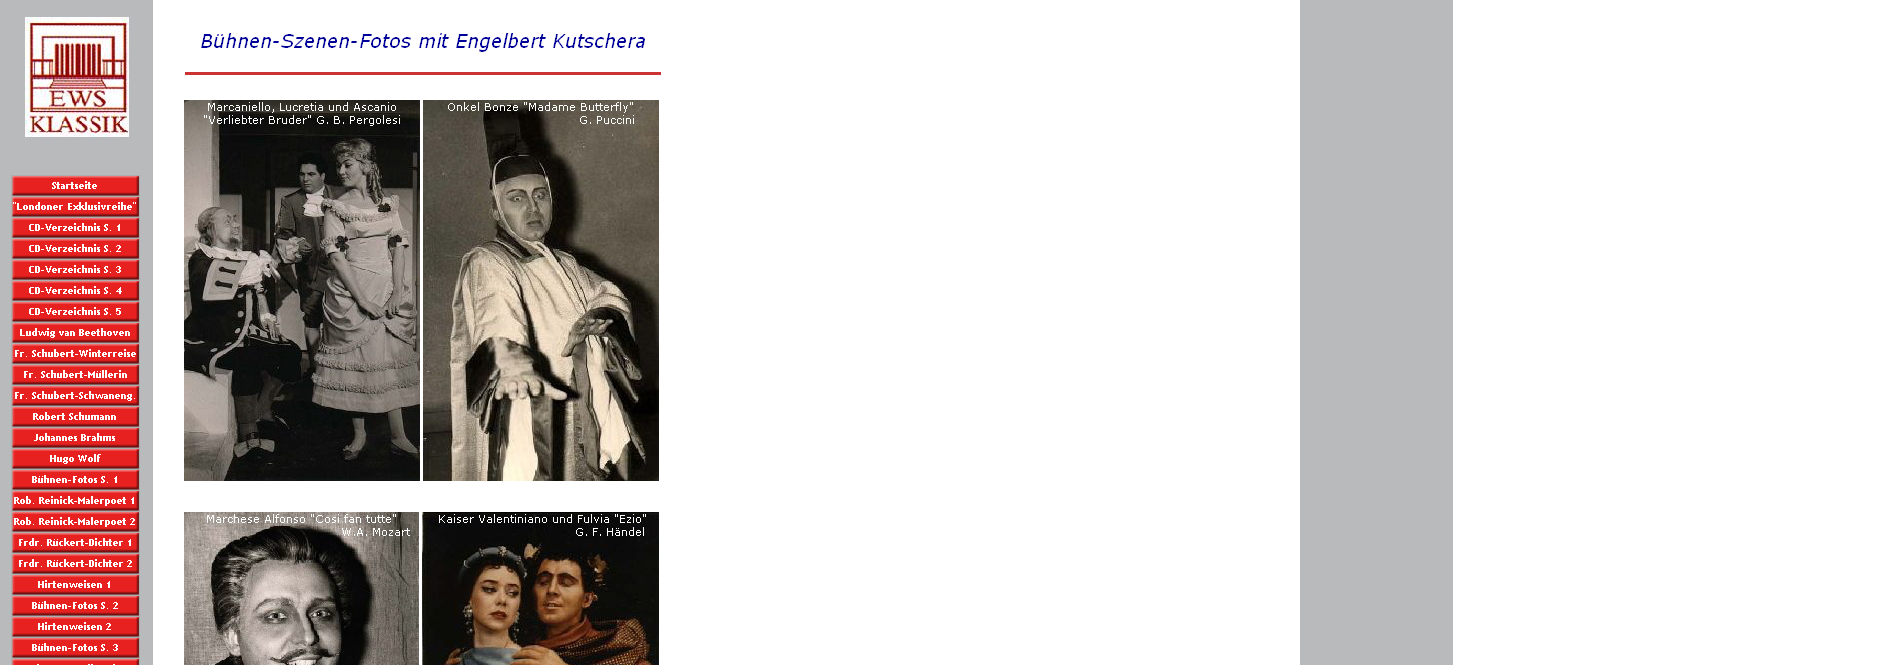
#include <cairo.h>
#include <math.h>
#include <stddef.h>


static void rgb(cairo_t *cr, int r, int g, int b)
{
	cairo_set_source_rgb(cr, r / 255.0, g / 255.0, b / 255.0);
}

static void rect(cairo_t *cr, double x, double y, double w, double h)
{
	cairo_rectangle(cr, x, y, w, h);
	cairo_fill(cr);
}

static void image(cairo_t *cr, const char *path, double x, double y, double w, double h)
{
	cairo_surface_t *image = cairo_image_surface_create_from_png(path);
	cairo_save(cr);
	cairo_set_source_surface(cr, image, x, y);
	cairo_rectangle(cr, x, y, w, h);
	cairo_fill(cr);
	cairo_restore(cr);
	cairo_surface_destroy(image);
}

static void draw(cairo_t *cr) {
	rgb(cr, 255, 255, 255);
	cairo_paint(cr);
	image(cr, "image0.png", 0, 0, 1453, 665);
	image(cr, "image1.png", 25, 17, 104, 120);
	image(cr, "image2.png", 201, 33, 444, 19);
	rgb(cr, 204, 51, 51);
	rect(cr, 185, 72, 476, 3);
	image(cr, "image3.png", 11, 175, 129, 21);
	image(cr, "image4.png", 11, 196, 129, 21);
	image(cr, "image5.png", 11, 217, 129, 21);
	image(cr, "image6.png", 11, 238, 129, 21);
	image(cr, "image7.png", 11, 259, 129, 21);
	image(cr, "image8.png", 11, 280, 129, 21);
	image(cr, "image9.png", 11, 301, 129, 21);
	image(cr, "image10.png", 11, 322, 129, 21);
	image(cr, "image11.png", 11, 343, 129, 21);
	image(cr, "image12.png", 11, 364, 129, 21);
	image(cr, "image13.png", 11, 385, 129, 21);
	image(cr, "image14.png", 11, 406, 129, 21);
	image(cr, "image15.png", 11, 427, 129, 21);
	image(cr, "image16.png", 11, 448, 129, 21);
	image(cr, "image17.png", 11, 469, 129, 21);
	image(cr, "image18.png", 11, 490, 129, 21);
	image(cr, "image19.png", 11, 511, 129, 21);
	image(cr, "image20.png", 11, 532, 129, 21);
	image(cr, "image21.png", 11, 553, 129, 21);
	image(cr, "image22.png", 11, 574, 129, 21);
	image(cr, "image23.png", 11, 595, 129, 21);
	image(cr, "image24.png", 11, 616, 129, 21);
	image(cr, "image25.png", 11, 637, 129, 21);
	image(cr, "image26.png", 11, 658, 129, 7);
	image(cr, "image27.png", 184, 100, 236, 381);
	image(cr, "image28.png", 423, 100, 236, 381);
	image(cr, "image29.png", 184, 512, 235, 153);
	image(cr, "image30.png", 422, 512, 237, 153);
}

int main(void) {
	cairo_surface_t *surface = cairo_image_surface_create(CAIRO_FORMAT_RGB24, 1901, 665);
	cairo_t *cr = cairo_create(surface);
	cairo_font_options_t *options = cairo_font_options_create();
	cairo_font_options_set_hint_metrics(options, CAIRO_HINT_METRICS_OFF);
	cairo_font_options_set_hint_style(options, CAIRO_HINT_STYLE_NONE);
	cairo_set_font_options(cr, options);
	cairo_set_miter_limit(cr, 4);
	draw(cr);
	cairo_surface_write_to_png(surface, "render.png");
	cairo_font_options_destroy(options);
	cairo_destroy(cr);
	cairo_surface_destroy(surface);
	return 0;
}
